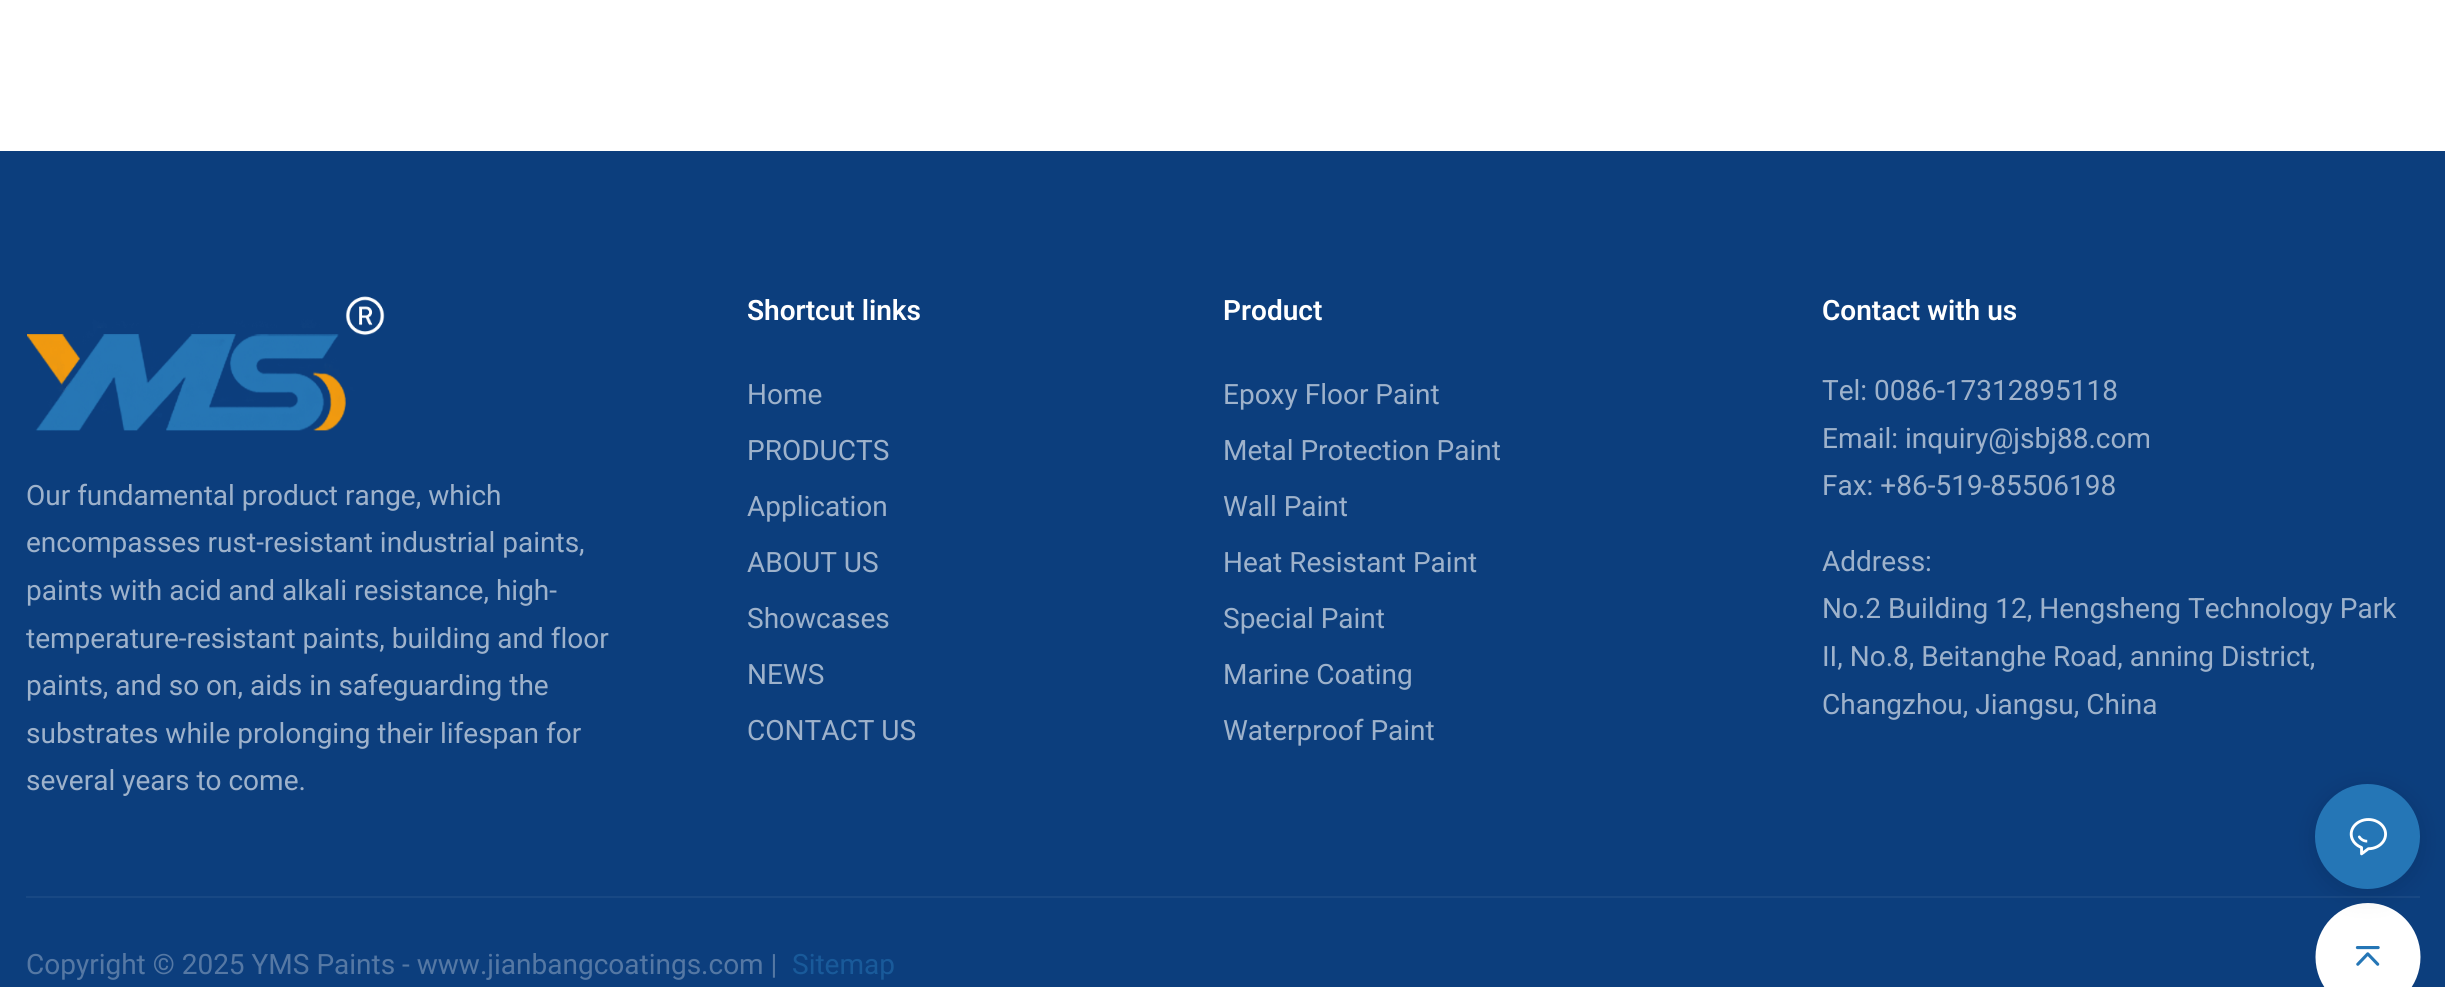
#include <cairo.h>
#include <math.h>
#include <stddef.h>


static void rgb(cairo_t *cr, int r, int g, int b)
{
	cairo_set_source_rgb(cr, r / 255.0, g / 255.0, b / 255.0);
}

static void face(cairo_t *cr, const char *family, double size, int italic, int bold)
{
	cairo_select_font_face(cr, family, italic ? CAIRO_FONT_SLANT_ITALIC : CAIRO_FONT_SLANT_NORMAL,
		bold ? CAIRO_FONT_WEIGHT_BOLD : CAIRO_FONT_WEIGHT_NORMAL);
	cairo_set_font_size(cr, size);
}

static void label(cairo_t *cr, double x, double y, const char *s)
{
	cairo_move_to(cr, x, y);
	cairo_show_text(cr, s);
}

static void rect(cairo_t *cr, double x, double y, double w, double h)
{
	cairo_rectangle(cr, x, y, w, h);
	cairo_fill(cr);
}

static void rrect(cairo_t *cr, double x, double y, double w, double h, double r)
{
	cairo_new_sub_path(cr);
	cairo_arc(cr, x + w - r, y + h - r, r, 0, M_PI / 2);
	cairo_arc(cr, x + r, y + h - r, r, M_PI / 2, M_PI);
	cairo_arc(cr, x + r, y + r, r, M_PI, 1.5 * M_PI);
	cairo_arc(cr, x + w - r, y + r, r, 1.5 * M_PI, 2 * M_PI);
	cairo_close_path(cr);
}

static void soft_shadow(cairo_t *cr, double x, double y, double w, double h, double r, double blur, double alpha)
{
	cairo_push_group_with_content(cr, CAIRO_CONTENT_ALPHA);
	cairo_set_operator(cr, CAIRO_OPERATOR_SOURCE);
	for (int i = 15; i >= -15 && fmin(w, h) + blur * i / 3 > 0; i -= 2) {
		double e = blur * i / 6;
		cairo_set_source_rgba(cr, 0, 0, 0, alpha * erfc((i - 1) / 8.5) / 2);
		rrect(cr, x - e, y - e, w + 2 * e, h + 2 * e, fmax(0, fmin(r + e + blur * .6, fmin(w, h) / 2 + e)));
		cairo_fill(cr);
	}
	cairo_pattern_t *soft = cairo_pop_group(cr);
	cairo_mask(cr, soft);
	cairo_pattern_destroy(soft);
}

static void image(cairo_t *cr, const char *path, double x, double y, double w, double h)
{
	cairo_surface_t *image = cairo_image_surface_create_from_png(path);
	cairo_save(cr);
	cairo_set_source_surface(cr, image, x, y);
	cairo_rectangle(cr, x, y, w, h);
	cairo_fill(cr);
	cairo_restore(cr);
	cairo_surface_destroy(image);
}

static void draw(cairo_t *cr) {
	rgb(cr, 255, 255, 255);
	cairo_paint(cr);
	rgb(cr, 12, 62, 125);
	rect(cr, 0, 151, 2445, 836);
	image(cr, "image0.png", 27, 296, 358, 135);
	face(cr, "Roboto", 28, 0, 0);
	rgb(cr, 158, 178, 203);
	label(cr, 26, 505, "Our fundamental product range, which");
	label(cr, 26, 552, "encompasses rust-resistant industrial paints,");
	label(cr, 26, 600, "paints with acid and alkali resistance, high-");
	label(cr, 26, 648, "temperature-resistant paints, building and floor");
	label(cr, 26, 695, "paints, and so on, aids in safeguarding the");
	label(cr, 26, 743, "substrates while prolonging their lifespan for");
	label(cr, 26, 790, "several years to come.");
	face(cr, "Roboto SemiBold", 28, 0, 0);
	rgb(cr, 255, 255, 255);
	label(cr, 747, 320, "Shortcut links");
	face(cr, "Roboto", 28, 0, 0);
	rgb(cr, 158, 178, 203);
	label(cr, 747, 404, "Home");
	label(cr, 747, 460, "PRODUCTS");
	label(cr, 747, 516, "Application");
	label(cr, 747, 572, "ABOUT US");
	label(cr, 747, 628, "Showcases");
	label(cr, 747, 684, "NEWS");
	label(cr, 747, 740, "CONTACT US");
	face(cr, "Roboto SemiBold", 28, 0, 0);
	rgb(cr, 255, 255, 255);
	label(cr, 1223, 320, "Product");
	face(cr, "Roboto", 28, 0, 0);
	rgb(cr, 158, 178, 203);
	label(cr, 1223, 404, "Epoxy Floor Paint");
	label(cr, 1223, 460, "Metal Protection Paint");
	label(cr, 1223, 516, "Wall Paint");
	label(cr, 1223, 572, "Heat Resistant Paint");
	label(cr, 1223, 628, "Special Paint");
	label(cr, 1223, 684, "Marine Coating");
	label(cr, 1223, 740, "Waterproof Paint");
	face(cr, "Roboto SemiBold", 28, 0, 0);
	rgb(cr, 255, 255, 255);
	label(cr, 1822, 320, "Contact with us");
	face(cr, "Roboto", 28, 0, 0);
	rgb(cr, 158, 178, 203);
	label(cr, 1822, 400, "Tel: 0086-17312895118");
	label(cr, 1822, 448, "Email: inquiry@jsbj88.com");
	label(cr, 1822, 495, "Fax: +86-519-85506198");
	label(cr, 1822, 571, "Address:");
	label(cr, 1822, 618, "No.2 Building 12, Hengsheng Technology Park");
	label(cr, 1822, 666, "II, No.8, Beitanghe Road, anning District,");
	label(cr, 1822, 714, "Changzhou, Jiangsu, China");
	rgb(cr, 24, 72, 132);
	rect(cr, 26, 896, 2394, 2);
	rgb(cr, 85, 120, 164);
	label(cr, 26, 974, "Copyright © 2025 YMS Paints - www.jianbangcoatings.com |");
	rgb(cr, 25, 90, 154);
	label(cr, 792, 974, "Sitemap");
	rgb(cr, 255, 255, 255);
	cairo_new_path(cr);
	cairo_move_to(cr, 2368, 903);
	cairo_curve_to(cr, 2397, 903, 2420.5, 927, 2420.5, 957);
	cairo_curve_to(cr, 2420.5, 987, 2397, 1011, 2368, 1011);
	cairo_curve_to(cr, 2339, 1011, 2315.5, 987, 2315.5, 957);
	cairo_curve_to(cr, 2315.5, 927, 2339, 903, 2368, 903);
	cairo_close_path(cr);
	cairo_fill(cr);
	rgb(cr, 0, 0, 0);
	soft_shadow(cr, 2315, 788, 105, 105, 52.5, 14, 0.12);
	rgb(cr, 37, 118, 182);
	cairo_arc(cr, 2367.5, 836.5, 52.5, 0, 2 * M_PI);
	cairo_fill(cr);
	image(cr, "image1.png", 2349, 818, 38, 38);
	image(cr, "image2.png", 2355, 946, 25, 20);
}

int main(void) {
	cairo_surface_t *surface = cairo_image_surface_create(CAIRO_FORMAT_RGB24, 2445, 987);
	cairo_t *cr = cairo_create(surface);
	cairo_font_options_t *options = cairo_font_options_create();
	cairo_font_options_set_hint_metrics(options, CAIRO_HINT_METRICS_OFF);
	cairo_font_options_set_hint_style(options, CAIRO_HINT_STYLE_NONE);
	cairo_set_font_options(cr, options);
	cairo_set_miter_limit(cr, 4);
	draw(cr);
	cairo_surface_write_to_png(surface, "render.png");
	cairo_font_options_destroy(options);
	cairo_destroy(cr);
	cairo_surface_destroy(surface);
	return 0;
}
